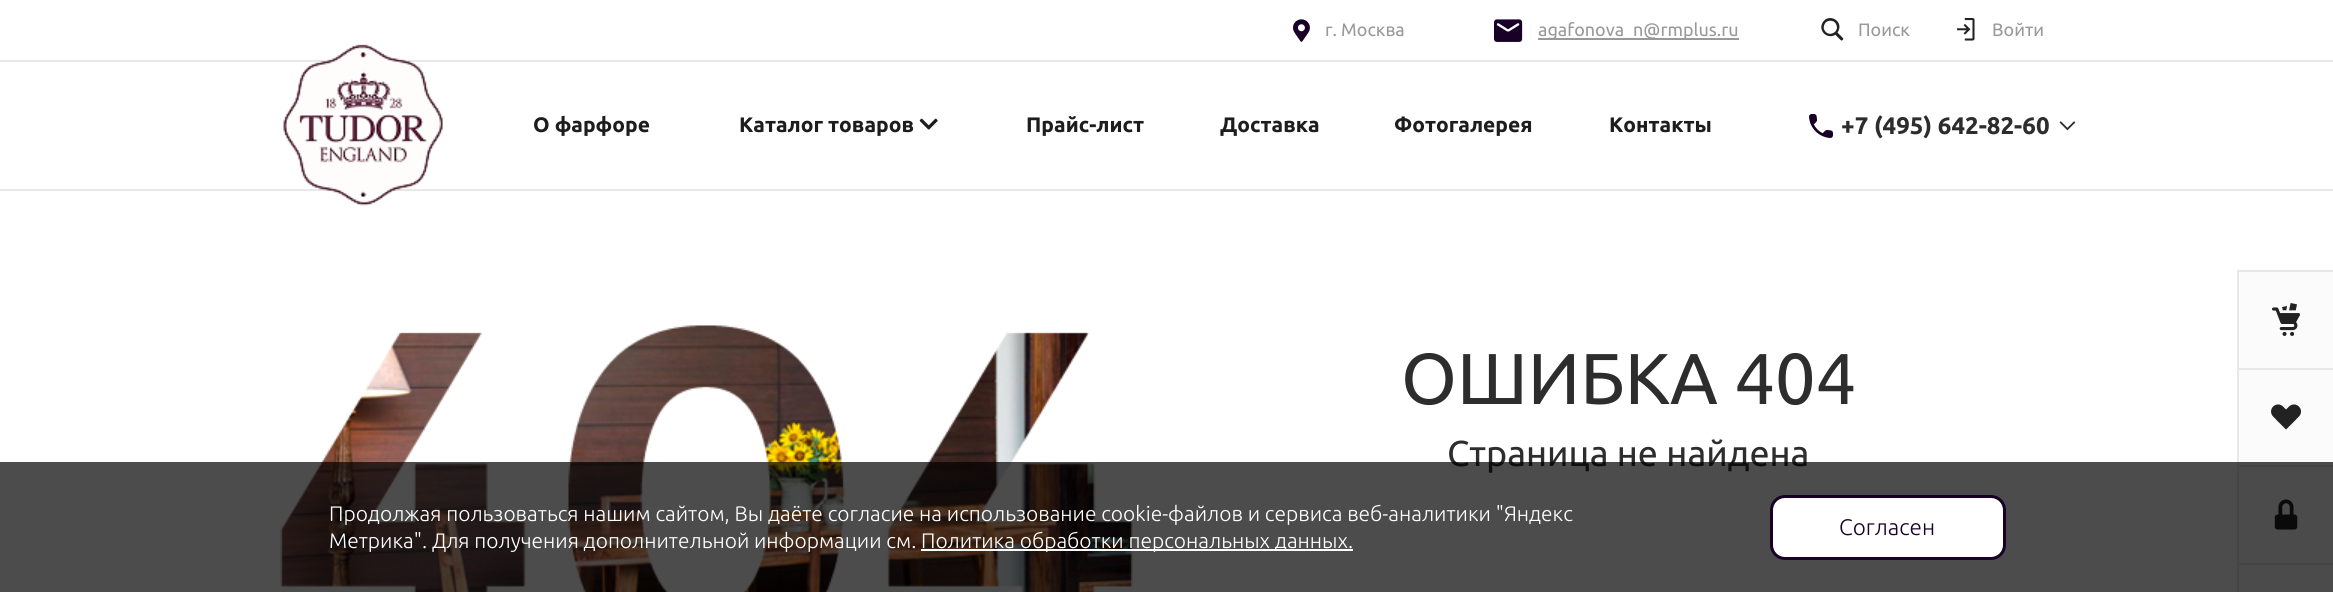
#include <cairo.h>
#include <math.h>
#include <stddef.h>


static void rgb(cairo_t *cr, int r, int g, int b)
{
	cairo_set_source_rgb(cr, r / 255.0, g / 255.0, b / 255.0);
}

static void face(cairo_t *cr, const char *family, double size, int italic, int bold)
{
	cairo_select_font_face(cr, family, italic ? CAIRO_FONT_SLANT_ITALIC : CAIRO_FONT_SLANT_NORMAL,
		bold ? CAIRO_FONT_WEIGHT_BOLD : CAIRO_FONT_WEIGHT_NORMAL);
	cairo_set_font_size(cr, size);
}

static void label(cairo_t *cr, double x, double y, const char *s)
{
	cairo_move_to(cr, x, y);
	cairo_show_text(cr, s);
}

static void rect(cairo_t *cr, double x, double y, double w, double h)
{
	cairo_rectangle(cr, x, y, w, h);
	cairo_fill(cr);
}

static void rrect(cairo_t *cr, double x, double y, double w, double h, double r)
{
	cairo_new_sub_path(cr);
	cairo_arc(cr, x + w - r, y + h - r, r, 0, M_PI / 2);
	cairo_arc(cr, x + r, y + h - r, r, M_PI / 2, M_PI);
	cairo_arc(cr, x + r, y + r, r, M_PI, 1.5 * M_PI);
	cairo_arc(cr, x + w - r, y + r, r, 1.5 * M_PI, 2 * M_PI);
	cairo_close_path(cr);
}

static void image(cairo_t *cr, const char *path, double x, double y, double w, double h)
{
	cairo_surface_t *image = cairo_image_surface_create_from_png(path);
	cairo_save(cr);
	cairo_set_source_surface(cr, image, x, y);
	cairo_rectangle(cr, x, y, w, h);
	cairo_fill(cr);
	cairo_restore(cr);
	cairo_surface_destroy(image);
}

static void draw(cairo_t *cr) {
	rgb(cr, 255, 255, 255);
	cairo_paint(cr);
	rgb(cr, 232, 232, 232);
	rect(cr, 0, 60, 2333, 2);
	image(cr, "image0.png", 1293, 19, 17, 23);
	face(cr, "Ubuntu", 18, 0, 0);
	rgb(cr, 153, 153, 153);
	label(cr, 1325, 36, "г. Москва");
	image(cr, "image1.png", 1494, 19, 29, 23);
	rect(cr, 1538, 38, 201, 2);
	label(cr, 1538, 36, "agafonova_n@rmplus.ru");
	image(cr, "image2.png", 1821, 18, 23, 23);
	label(cr, 1858, 36, "Поиск");
	image(cr, "image3.png", 1957, 18, 18, 23);
	label(cr, 1992, 36, "Войти");
	rgb(cr, 232, 232, 232);
	rect(cr, 0, 189, 2333, 2);
	image(cr, "image4.png", 283, 44, 160, 162);
	face(cr, "Ubuntu", 21, 0, 1);
	rgb(cr, 29, 29, 29);
	label(cr, 533, 132, "О фарфоре");
	label(cr, 739, 132, "Каталог товаров");
	image(cr, "image5.png", 919, 118, 19, 12);
	label(cr, 1026, 132, "Прайс-лист");
	label(cr, 1220, 132, "Доставка");
	label(cr, 1394, 132, "Фотогалерея");
	label(cr, 1609, 132, "Контакты");
	image(cr, "image6.png", 1809, 114, 24, 24);
	face(cr, "Ubuntu", 24, 0, 1);
	rgb(cr, 45, 45, 45);
	label(cr, 1841, 134, "+7 (495) 642-82-60");
	image(cr, "image7.png", 2059, 121, 17, 10);
	image(cr, "image8.png", 280, 325, 853, 267);
	face(cr, "Ubuntu", 72, 0, 0);
	label(cr, 1401, 404, "ОШИБКА 404");
	face(cr, "Ubuntu", 36, 0, 0);
	label(cr, 1447, 466, "Страница не найдена");
	rgb(cr, 251, 251, 251);
	rect(cr, 2239, 272, 94, 320);
	rgb(cr, 231, 231, 231);
	rect(cr, 2237, 270, 96, 2);
	rect(cr, 2237, 270, 2, 322);
	rect(cr, 2238, 368, 95, 2);
	image(cr, "image9.png", 2272, 303, 28, 33);
	rect(cr, 2238, 465, 95, 2);
	image(cr, "image10.png", 2271, 404, 30, 26);
	rect(cr, 2238, 563, 95, 2);
	image(cr, "image11.png", 2274, 499, 24, 31);
	cairo_set_source_rgba(cr, 0, 0, 0, 0.7);
	rect(cr, 0, 462, 2333, 130);
	face(cr, "Ubuntu Light", 21, 0, 0);
	rgb(cr, 255, 255, 255);
	label(cr, 329, 521, "Продолжая пользоваться нашим сайтом, Вы даёте согласие на использование cookie-файлов и сервиса веб-аналитики \"Яндекс");
	label(cr, 329, 548, "Метрика\". Для получения дополнительной информации см.");
	rect(cr, 921, 549, 432, 2);
	label(cr, 921, 548, "Политика обработки персональных данных.");
	rrect(cr, 1771.5, 496.5, 233, 62, 13.5);
	cairo_fill_preserve(cr);
	rgb(cr, 24, 0, 38);
	cairo_set_line_width(cr, 3);
	cairo_stroke(cr);
	face(cr, "Ubuntu Light", 22.5, 0, 0);
	label(cr, 1839, 535, "Согласен");
}

int main(void) {
	cairo_surface_t *surface = cairo_image_surface_create(CAIRO_FORMAT_RGB24, 2333, 592);
	cairo_t *cr = cairo_create(surface);
	cairo_font_options_t *options = cairo_font_options_create();
	cairo_font_options_set_hint_metrics(options, CAIRO_HINT_METRICS_OFF);
	cairo_font_options_set_hint_style(options, CAIRO_HINT_STYLE_NONE);
	cairo_set_font_options(cr, options);
	cairo_set_miter_limit(cr, 4);
	draw(cr);
	cairo_surface_write_to_png(surface, "render.png");
	cairo_font_options_destroy(options);
	cairo_destroy(cr);
	cairo_surface_destroy(surface);
	return 0;
}
